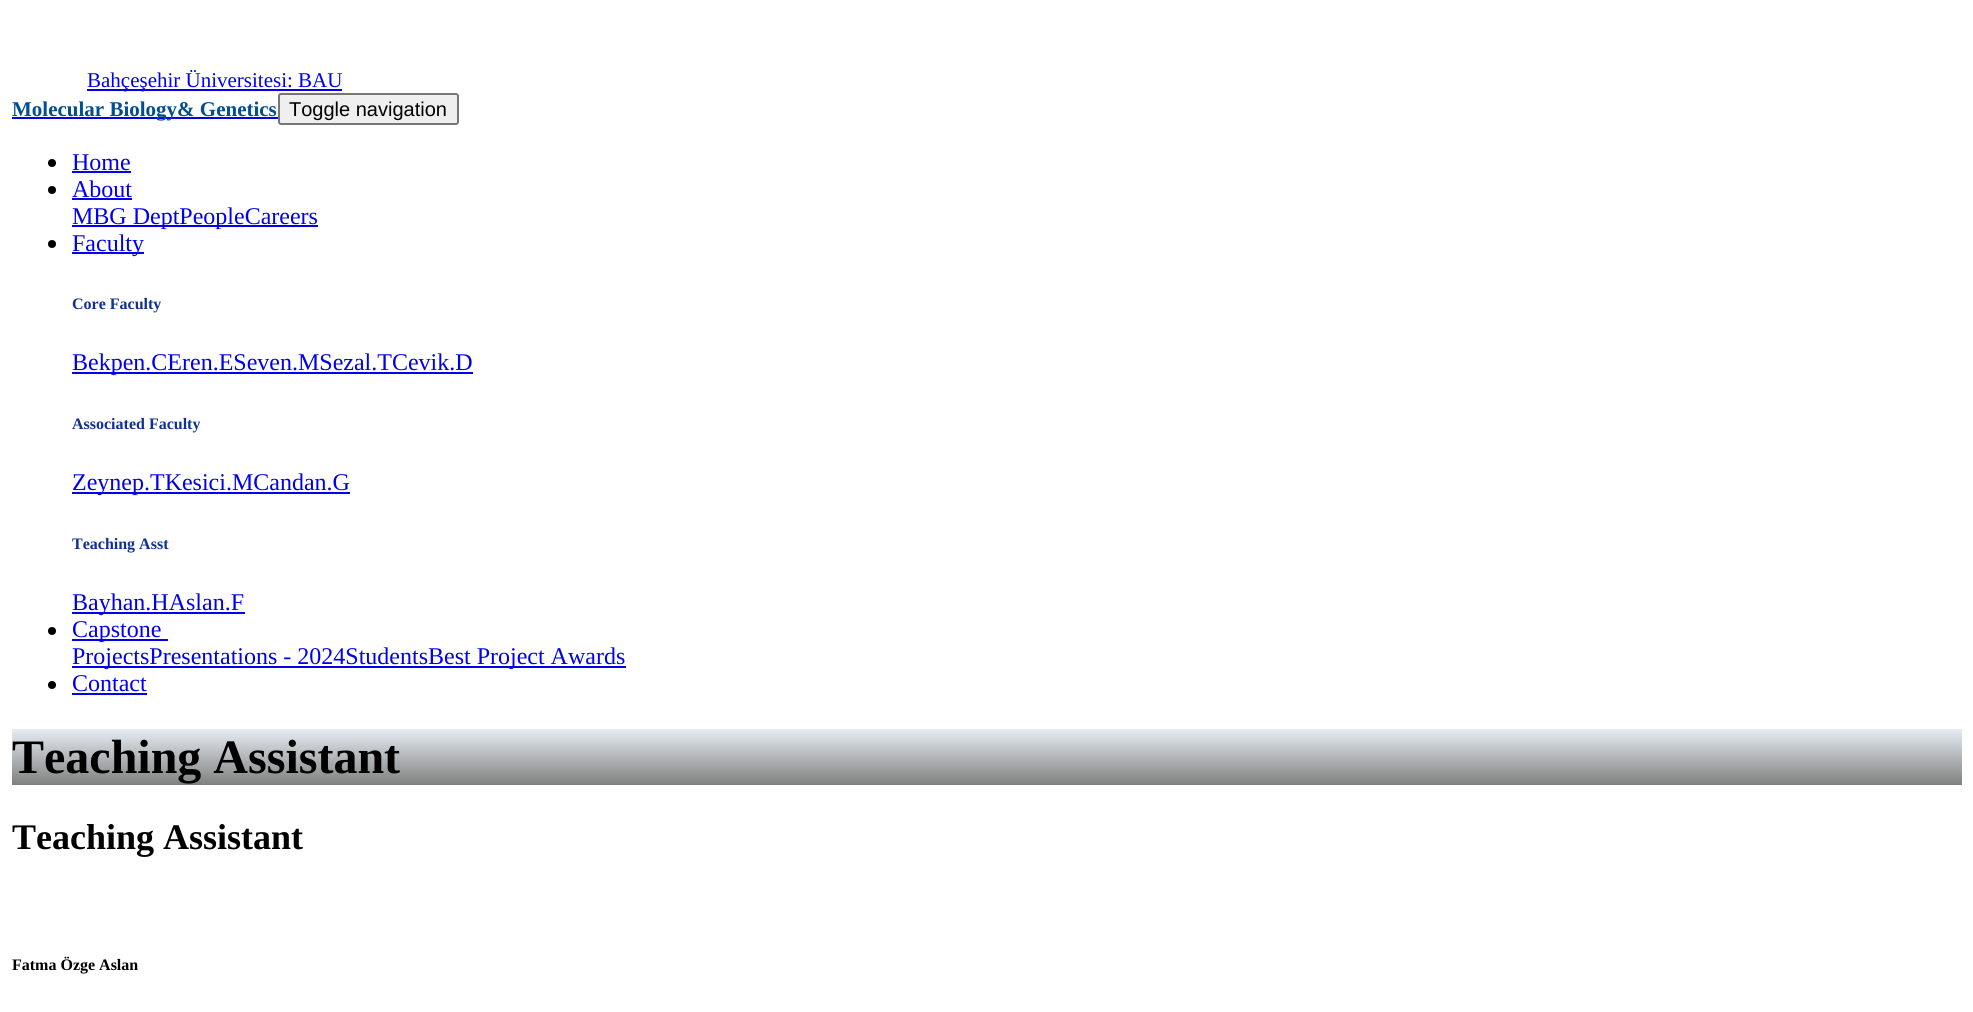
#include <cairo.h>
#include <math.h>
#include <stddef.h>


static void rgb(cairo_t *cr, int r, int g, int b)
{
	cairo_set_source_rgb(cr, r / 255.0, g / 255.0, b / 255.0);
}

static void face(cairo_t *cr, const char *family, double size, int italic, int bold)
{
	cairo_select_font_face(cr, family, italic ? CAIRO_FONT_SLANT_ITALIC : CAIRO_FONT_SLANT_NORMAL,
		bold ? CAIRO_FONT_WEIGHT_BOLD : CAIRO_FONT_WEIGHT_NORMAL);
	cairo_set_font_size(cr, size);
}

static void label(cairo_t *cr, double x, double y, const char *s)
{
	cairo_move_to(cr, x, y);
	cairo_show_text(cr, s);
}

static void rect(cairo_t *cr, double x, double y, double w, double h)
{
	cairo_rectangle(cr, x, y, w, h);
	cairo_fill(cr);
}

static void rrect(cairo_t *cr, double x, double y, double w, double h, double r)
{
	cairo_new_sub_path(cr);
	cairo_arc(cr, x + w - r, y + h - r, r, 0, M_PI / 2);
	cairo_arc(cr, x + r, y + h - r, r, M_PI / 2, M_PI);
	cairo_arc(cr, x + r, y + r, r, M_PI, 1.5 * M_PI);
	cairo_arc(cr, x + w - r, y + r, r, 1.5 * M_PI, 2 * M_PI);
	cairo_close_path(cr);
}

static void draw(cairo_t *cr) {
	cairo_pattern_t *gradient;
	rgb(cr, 255, 255, 255);
	cairo_paint(cr);
	rgb(cr, 0, 0, 238);
	rect(cr, 87, 89, 255, 2);
	face(cr, "Liberation Serif", 21, 0, 0);
	label(cr, 87, 87, "Bahçeşehir Üniversitesi: BAU");
	rect(cr, 12, 117, 266, 2);
	face(cr, "Liberation Serif", 21, 0, 1);
	rgb(cr, 0, 78, 147);
	label(cr, 12, 116, "Molecular Biology& Genetics");
	rgb(cr, 239, 239, 239);
	rrect(cr, 279, 94, 179, 30, 2);
	cairo_fill_preserve(cr);
	rgb(cr, 118, 118, 118);
	cairo_stroke(cr);
	face(cr, "Liberation Sans", 20, 0, 0);
	rgb(cr, 0, 0, 0);
	label(cr, 289, 116, "Toggle navigation");
	cairo_new_path(cr);
	cairo_arc(cr, 52, 163, 4, 0, 2 * M_PI);
	cairo_fill(cr);
	face(cr, "Liberation Serif", 24, 0, 0);
	rgb(cr, 0, 0, 238);
	label(cr, 72, 170, "Home");
	rect(cr, 72, 171, 59, 2);
	rgb(cr, 0, 0, 0);
	cairo_new_path(cr);
	cairo_arc(cr, 52, 190, 4, 0, 2 * M_PI);
	cairo_fill(cr);
	rgb(cr, 0, 0, 238);
	label(cr, 72, 197, "About");
	rect(cr, 72, 198, 60, 2);
	rect(cr, 72, 225, 246, 2);
	label(cr, 72, 224, "MBG DeptPeopleCareers");
	rgb(cr, 0, 0, 0);
	cairo_new_path(cr);
	cairo_arc(cr, 52, 244, 4, 0, 2 * M_PI);
	cairo_fill(cr);
	rgb(cr, 0, 0, 238);
	rect(cr, 72, 252, 72, 2);
	label(cr, 72, 251, "Faculty");
	face(cr, "Liberation Serif", 16, 0, 1);
	rgb(cr, 14, 49, 146);
	label(cr, 72, 309, "Core Faculty");
	rgb(cr, 0, 0, 238);
	rect(cr, 72, 372, 401, 2);
	face(cr, "Liberation Serif", 24, 0, 0);
	label(cr, 72, 370, "Bekpen.CEren.ESeven.MSezal.TCevik.D");
	face(cr, "Liberation Serif", 16, 0, 1);
	rgb(cr, 14, 49, 146);
	label(cr, 72, 429, "Associated Faculty");
	rgb(cr, 0, 0, 238);
	rect(cr, 72, 492, 278, 2);
	face(cr, "Liberation Serif", 24, 0, 0);
	label(cr, 72, 490, "Zeynep.TKesici.MCandan.G");
	face(cr, "Liberation Serif", 16, 0, 1);
	rgb(cr, 14, 49, 146);
	label(cr, 72, 549, "Teaching Asst");
	rgb(cr, 0, 0, 238);
	rect(cr, 72, 612, 173, 2);
	face(cr, "Liberation Serif", 24, 0, 0);
	label(cr, 72, 610, "Bayhan.HAslan.F");
	rgb(cr, 0, 0, 0);
	cairo_new_path(cr);
	cairo_arc(cr, 52, 631, 4, 0, 2 * M_PI);
	cairo_fill(cr);
	rgb(cr, 0, 0, 238);
	rect(cr, 72, 639, 96, 2);
	label(cr, 72, 637, "Capstone");
	rect(cr, 72, 666, 554, 2);
	label(cr, 72, 664, "ProjectsPresentations - 2024StudentsBest Project Awards");
	rgb(cr, 0, 0, 0);
	cairo_new_path(cr);
	cairo_arc(cr, 52, 685, 4, 0, 2 * M_PI);
	cairo_fill(cr);
	rgb(cr, 0, 0, 238);
	label(cr, 72, 691, "Contact");
	rect(cr, 72, 693, 75, 2);
	gradient = cairo_pattern_create_linear(987, 729, 987, 785);
	cairo_pattern_add_color_stop_rgba(gradient, 0, 0.902, 0.929, 0.953, 1);
	cairo_pattern_add_color_stop_rgba(gradient, 1, 0.502, 0.502, 0.502, 1);
	cairo_set_source(cr, gradient);
	cairo_pattern_destroy(gradient);
	rect(cr, 12, 729, 1950, 56);
	face(cr, "Liberation Serif", 48, 0, 1);
	rgb(cr, 0, 0, 0);
	label(cr, 12, 773, "Teaching Assistant");
	face(cr, "Liberation Serif", 36, 0, 1);
	label(cr, 12, 849, "Teaching Assistant");
	face(cr, "Liberation Serif", 16, 0, 1);
	label(cr, 12, 970, "Fatma Özge Aslan");
}

int main(void) {
	cairo_surface_t *surface = cairo_image_surface_create(CAIRO_FORMAT_RGB24, 1973, 1012);
	cairo_t *cr = cairo_create(surface);
	cairo_font_options_t *options = cairo_font_options_create();
	cairo_font_options_set_hint_metrics(options, CAIRO_HINT_METRICS_OFF);
	cairo_font_options_set_hint_style(options, CAIRO_HINT_STYLE_NONE);
	cairo_set_font_options(cr, options);
	cairo_set_miter_limit(cr, 4);
	draw(cr);
	cairo_surface_write_to_png(surface, "render.png");
	cairo_font_options_destroy(options);
	cairo_destroy(cr);
	cairo_surface_destroy(surface);
	return 0;
}
